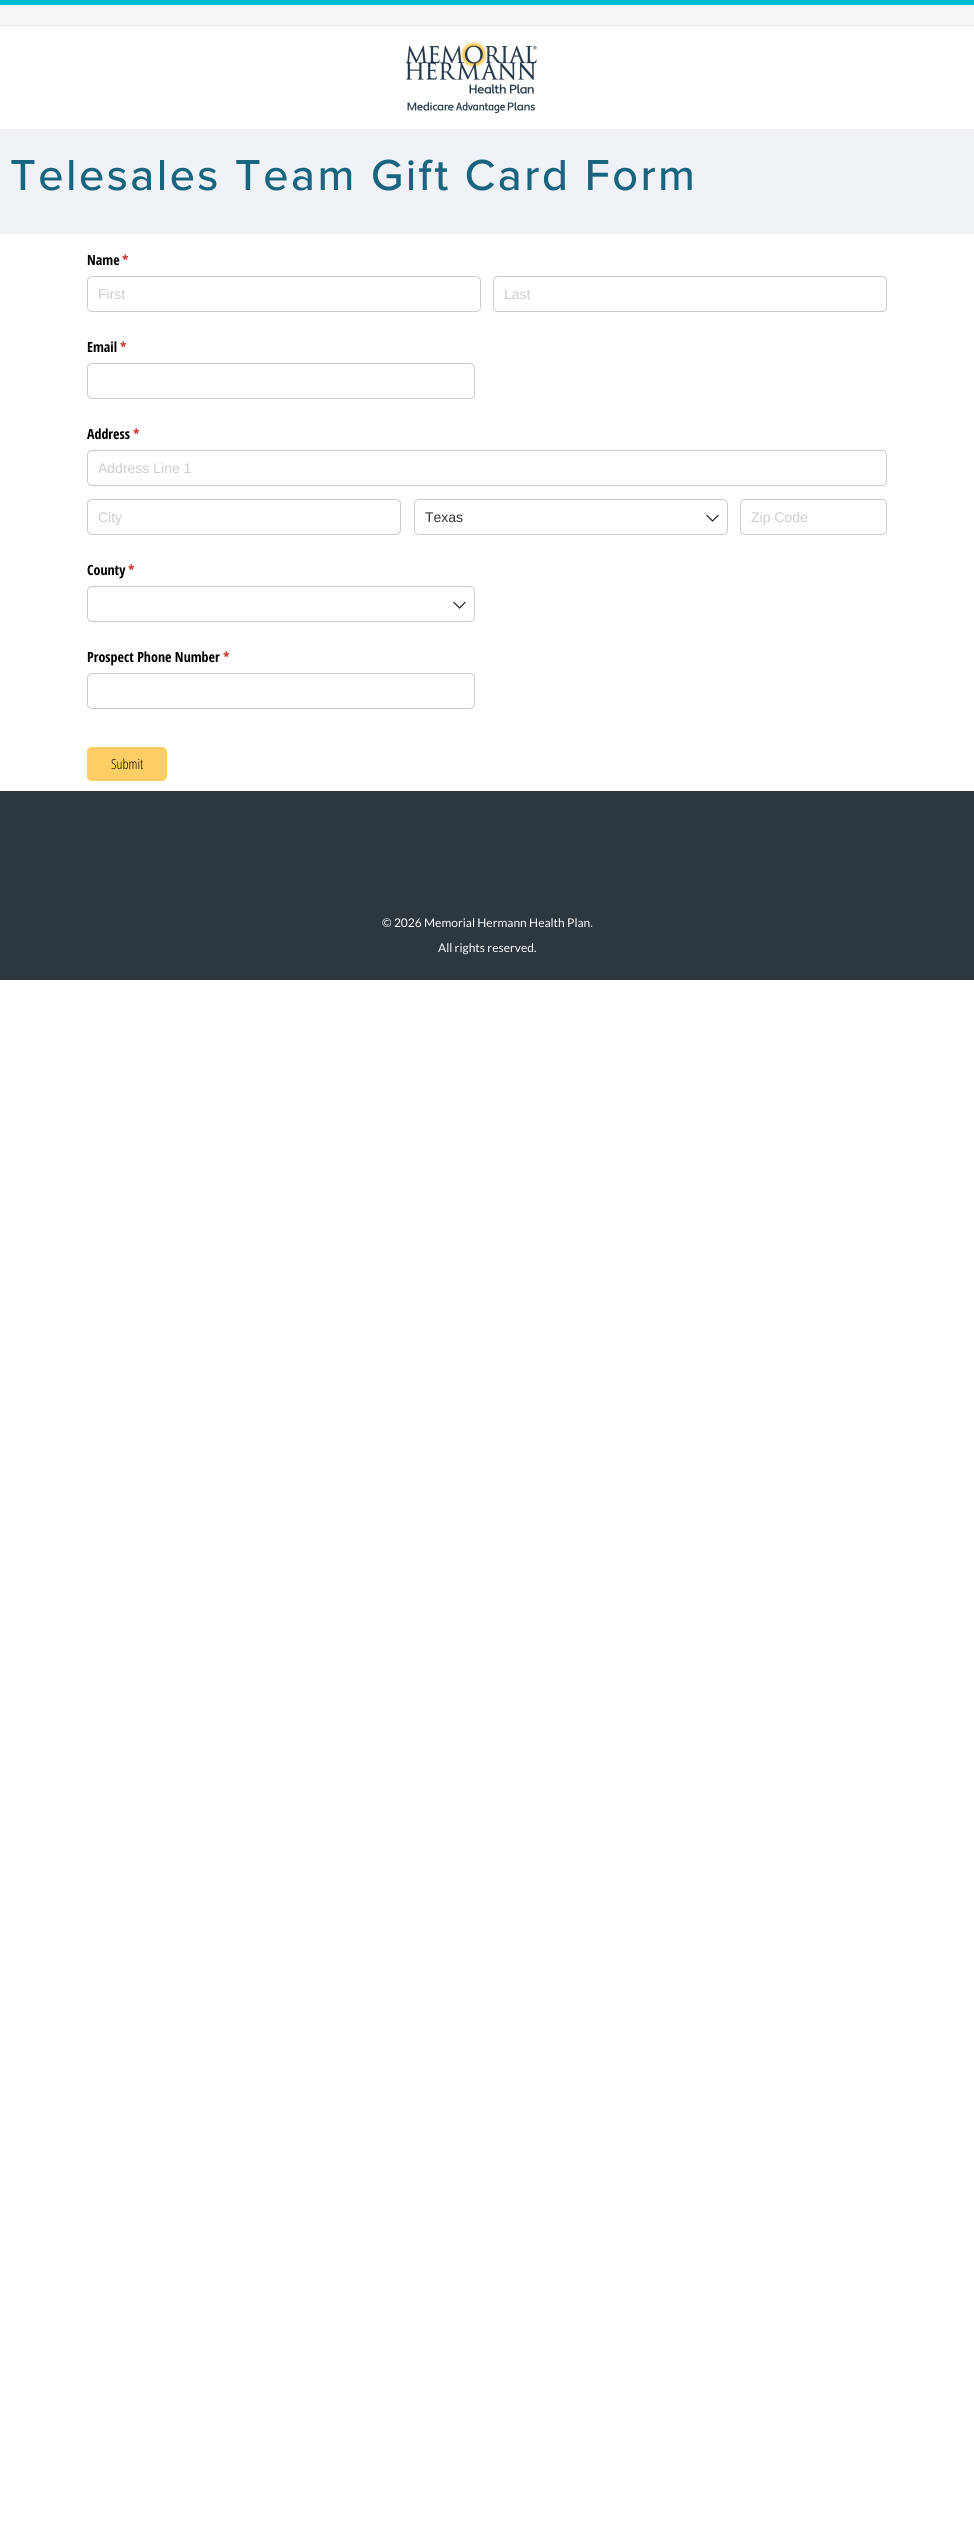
#include <cairo.h>
#include <math.h>
#include <stddef.h>


static void rgb(cairo_t *cr, int r, int g, int b)
{
	cairo_set_source_rgb(cr, r / 255.0, g / 255.0, b / 255.0);
}

static void face(cairo_t *cr, const char *family, double size, int italic, int bold)
{
	cairo_select_font_face(cr, family, italic ? CAIRO_FONT_SLANT_ITALIC : CAIRO_FONT_SLANT_NORMAL,
		bold ? CAIRO_FONT_WEIGHT_BOLD : CAIRO_FONT_WEIGHT_NORMAL);
	cairo_set_font_size(cr, size);
}

static void label(cairo_t *cr, double x, double y, const char *s)
{
	cairo_move_to(cr, x, y);
	cairo_show_text(cr, s);
}

static void tracked(cairo_t *cr, double x, double y, const char *s, double letter, double word)
{
	cairo_move_to(cr, x, y);
	while (*s) {
		char ch[5] = {0};
		int n = 0;
		do ch[n++] = *s++; while ((*s & 0xC0) == 0x80);
		cairo_show_text(cr, ch);
		cairo_rel_move_to(cr, letter + word * (*ch == ' '), 0);
	}
}

static void rect(cairo_t *cr, double x, double y, double w, double h)
{
	cairo_rectangle(cr, x, y, w, h);
	cairo_fill(cr);
}

static void rrect(cairo_t *cr, double x, double y, double w, double h, double r)
{
	cairo_new_sub_path(cr);
	cairo_arc(cr, x + w - r, y + h - r, r, 0, M_PI / 2);
	cairo_arc(cr, x + r, y + h - r, r, M_PI / 2, M_PI);
	cairo_arc(cr, x + r, y + r, r, M_PI, 1.5 * M_PI);
	cairo_arc(cr, x + w - r, y + r, r, 1.5 * M_PI, 2 * M_PI);
	cairo_close_path(cr);
}

static void image(cairo_t *cr, const char *path, double x, double y, double w, double h)
{
	cairo_surface_t *image = cairo_image_surface_create_from_png(path);
	cairo_save(cr);
	cairo_set_source_surface(cr, image, x, y);
	cairo_rectangle(cr, x, y, w, h);
	cairo_fill(cr);
	cairo_restore(cr);
	cairo_surface_destroy(image);
}

static void draw(cairo_t *cr) {
	rgb(cr, 255, 255, 255);
	cairo_paint(cr);
	rgb(cr, 0, 188, 212);
	rect(cr, 0, 0, 974, 5);
	rgb(cr, 223, 229, 232);
	rect(cr, 0, 25, 974, 1);
	rgb(cr, 244, 246, 247);
	rect(cr, 0, 5, 974, 20);
	image(cr, "image0.png", 405, 41, 132, 73);
	rgb(cr, 239, 243, 247);
	rect(cr, 0, 129, 974, 105);
	face(cr, "Proxima Nova Medium", 45, 0, 0);
	rgb(cr, 25, 100, 126);
	tracked(cr, 10, 190, "Telesales Team Gift Card Form", 2.5, 0);
	face(cr, "Open Sans Condensed", 14, 0, 1);
	rgb(cr, 0, 0, 0);
	label(cr, 87, 265, "Name");
	rgb(cr, 204, 42, 36);
	label(cr, 122, 265, "*");
	rrect(cr, 87.5, 276.5, 393, 35, 4.5);
	rgb(cr, 204, 204, 204);
	cairo_set_line_width(cr, 1);
	cairo_stroke(cr);
	face(cr, "Liberation Sans", 14, 0, 0);
	label(cr, 98, 299, "First");
	rrect(cr, 493.5, 276.5, 393, 35, 4.5);
	cairo_stroke(cr);
	label(cr, 504, 299, "Last");
	face(cr, "Open Sans Condensed", 14, 0, 1);
	rgb(cr, 0, 0, 0);
	label(cr, 87, 352, "Email");
	rgb(cr, 204, 42, 36);
	label(cr, 120, 352, "*");
	rrect(cr, 87.5, 363.5, 387, 35, 4.5);
	rgb(cr, 204, 204, 204);
	cairo_stroke(cr);
	rgb(cr, 0, 0, 0);
	label(cr, 87, 439, "Address");
	rgb(cr, 204, 42, 36);
	label(cr, 133, 439, "*");
	rrect(cr, 87.5, 450.5, 799, 35, 4.5);
	rgb(cr, 204, 204, 204);
	cairo_stroke(cr);
	face(cr, "Liberation Sans", 14, 0, 0);
	label(cr, 98, 473, "Address Line 1");
	rrect(cr, 87.5, 499.5, 313, 35, 4.5);
	cairo_stroke(cr);
	label(cr, 98, 522, "City");
	rrect(cr, 414.5, 499.5, 313, 35, 4.5);
	cairo_stroke(cr);
	rgb(cr, 51, 51, 51);
	label(cr, 425, 522, "Texas");
	cairo_new_path(cr);
	cairo_move_to(cr, 707, 515.5);
	cairo_line_to(cr, 712.5, 521);
	cairo_line_to(cr, 718, 515.5);
	cairo_set_line_width(cr, 1.3);
	cairo_set_line_cap(cr, CAIRO_LINE_CAP_SQUARE);
	cairo_stroke(cr);
	rrect(cr, 740.5, 499.5, 146, 35, 4.5);
	rgb(cr, 204, 204, 204);
	cairo_set_line_width(cr, 1);
	cairo_set_line_cap(cr, CAIRO_LINE_CAP_BUTT);
	cairo_stroke(cr);
	label(cr, 751, 522, "Zip Code");
	face(cr, "Open Sans Condensed", 14, 0, 1);
	rgb(cr, 0, 0, 0);
	label(cr, 87, 575, "County");
	rgb(cr, 204, 42, 36);
	label(cr, 128, 575, "*");
	rrect(cr, 87.5, 586.5, 387, 35, 4.5);
	rgb(cr, 204, 204, 204);
	cairo_stroke(cr);
	cairo_new_path(cr);
	cairo_move_to(cr, 454, 602.5);
	cairo_line_to(cr, 459.5, 608);
	cairo_line_to(cr, 465, 602.5);
	rgb(cr, 51, 51, 51);
	cairo_set_line_width(cr, 1.3);
	cairo_set_line_cap(cr, CAIRO_LINE_CAP_SQUARE);
	cairo_stroke(cr);
	rgb(cr, 0, 0, 0);
	label(cr, 87, 662, "Prospect Phone Number");
	rgb(cr, 204, 42, 36);
	label(cr, 223, 662, "*");
	rrect(cr, 87.5, 673.5, 387, 35, 4.5);
	rgb(cr, 204, 204, 204);
	cairo_set_line_width(cr, 1);
	cairo_set_line_cap(cr, CAIRO_LINE_CAP_BUTT);
	cairo_stroke(cr);
	rgb(cr, 254, 206, 102);
	rrect(cr, 87, 747, 80, 34, 5);
	cairo_fill(cr);
	face(cr, "Open Sans Condensed Light", 14, 0, 0);
	rgb(cr, 0, 0, 0);
	label(cr, 111, 769, "Submit");
	rgb(cr, 44, 55, 63);
	rect(cr, 0, 792, 974, 188);
	rgb(cr, 49, 54, 70);
	rect(cr, 0, 791, 974, 1);
	face(cr, "Lato", 12, 0, 0);
	rgb(cr, 255, 255, 255);
	label(cr, 382, 927, "© 2026 Memorial Hermann Health Plan.");
	label(cr, 438, 952, "All rights reserved.");
}

int main(void) {
	cairo_surface_t *surface = cairo_image_surface_create(CAIRO_FORMAT_RGB24, 974, 2539);
	cairo_t *cr = cairo_create(surface);
	cairo_font_options_t *options = cairo_font_options_create();
	cairo_font_options_set_hint_metrics(options, CAIRO_HINT_METRICS_OFF);
	cairo_font_options_set_hint_style(options, CAIRO_HINT_STYLE_NONE);
	cairo_set_font_options(cr, options);
	cairo_set_miter_limit(cr, 4);
	draw(cr);
	cairo_surface_write_to_png(surface, "render.png");
	cairo_font_options_destroy(options);
	cairo_destroy(cr);
	cairo_surface_destroy(surface);
	return 0;
}
